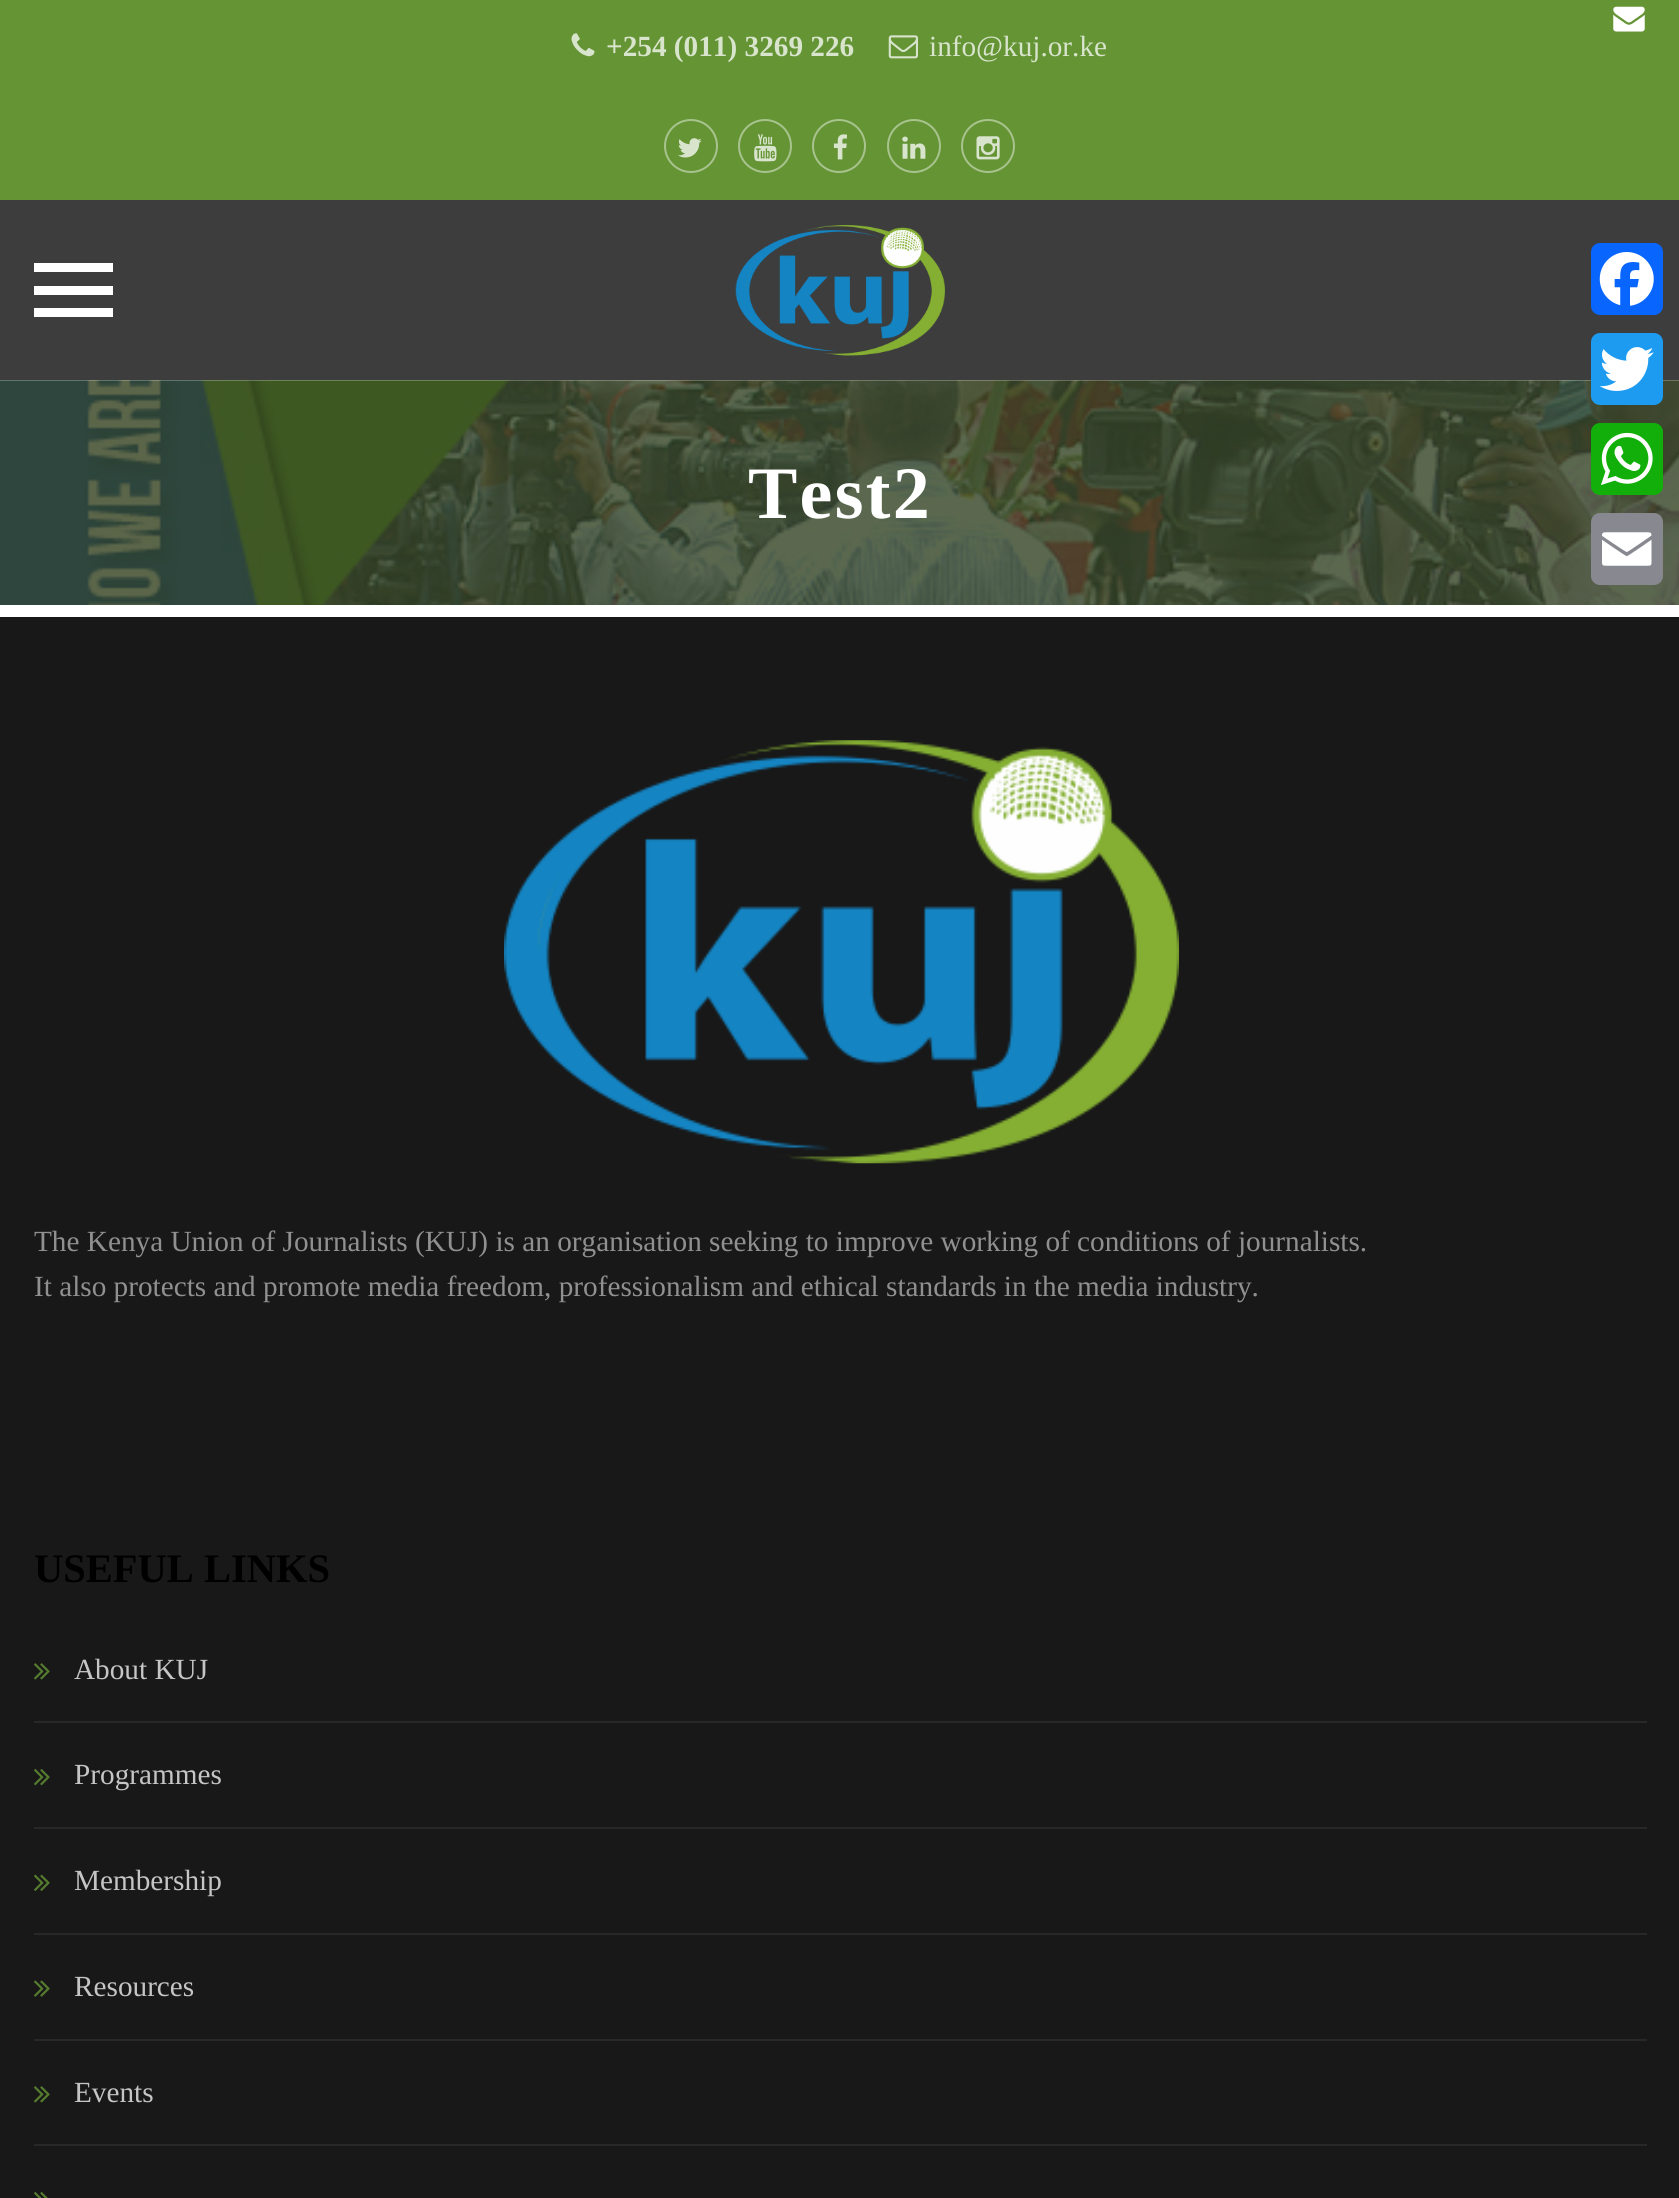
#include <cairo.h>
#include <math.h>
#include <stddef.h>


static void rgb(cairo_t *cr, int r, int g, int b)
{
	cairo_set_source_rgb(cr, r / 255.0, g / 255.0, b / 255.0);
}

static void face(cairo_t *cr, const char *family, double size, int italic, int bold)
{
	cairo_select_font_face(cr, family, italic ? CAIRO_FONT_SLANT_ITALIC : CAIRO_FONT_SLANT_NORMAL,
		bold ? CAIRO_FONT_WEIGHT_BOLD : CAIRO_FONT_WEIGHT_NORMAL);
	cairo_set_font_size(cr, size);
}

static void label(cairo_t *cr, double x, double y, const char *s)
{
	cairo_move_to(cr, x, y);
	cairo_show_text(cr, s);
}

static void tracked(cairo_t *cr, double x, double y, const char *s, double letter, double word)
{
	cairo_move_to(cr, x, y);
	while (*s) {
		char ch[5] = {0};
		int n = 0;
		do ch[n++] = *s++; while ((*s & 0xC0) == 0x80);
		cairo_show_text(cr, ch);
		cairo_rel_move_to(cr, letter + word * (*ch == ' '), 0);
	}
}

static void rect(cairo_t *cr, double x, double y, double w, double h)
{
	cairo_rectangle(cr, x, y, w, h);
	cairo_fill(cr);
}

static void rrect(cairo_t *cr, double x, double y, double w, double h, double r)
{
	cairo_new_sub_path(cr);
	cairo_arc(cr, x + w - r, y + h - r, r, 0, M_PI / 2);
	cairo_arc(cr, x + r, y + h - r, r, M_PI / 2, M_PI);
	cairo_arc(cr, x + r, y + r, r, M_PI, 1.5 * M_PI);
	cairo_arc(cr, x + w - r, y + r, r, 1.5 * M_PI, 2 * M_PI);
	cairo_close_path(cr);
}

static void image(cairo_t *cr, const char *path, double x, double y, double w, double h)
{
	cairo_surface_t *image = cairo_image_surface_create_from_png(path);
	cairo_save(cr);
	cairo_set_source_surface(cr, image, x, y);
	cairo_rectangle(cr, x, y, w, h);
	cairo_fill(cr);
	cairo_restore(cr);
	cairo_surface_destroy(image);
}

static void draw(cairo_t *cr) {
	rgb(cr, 255, 255, 255);
	cairo_paint(cr);
	rgb(cr, 100, 148, 52);
	rect(cr, 0, 0, 1679, 200);
	image(cr, "image0.png", 1613, 6, 32, 26);
	image(cr, "image1.png", 571, 33, 24, 24);
	face(cr, "Liberation Serif", 29.25, 0, 1);
	rgb(cr, 216, 228, 204);
	label(cr, 606, 56, "+254 (011) 3269 226");
	image(cr, "image2.png", 888, 35, 30, 24);
	face(cr, "Liberation Serif", 29.25, 0, 0);
	label(cr, 929, 56, "info@kuj.or.ke");
	cairo_new_path(cr);
	cairo_arc(cr, 691, 146, 26, 0, 2 * M_PI);
	rgb(cr, 168, 195, 141);
	cairo_stroke(cr);
	image(cr, "image3.png", 678, 138, 24, 20);
	cairo_arc(cr, 765, 146, 26, 0, 2 * M_PI);
	cairo_stroke(cr);
	image(cr, "image4.png", 754, 134, 23, 28);
	cairo_arc(cr, 839, 146, 26, 0, 2 * M_PI);
	cairo_stroke(cr);
	image(cr, "image5.png", 833, 134, 14, 26);
	cairo_arc(cr, 914, 146, 26, 0, 2 * M_PI);
	cairo_stroke(cr);
	image(cr, "image6.png", 902, 136, 24, 23);
	cairo_arc(cr, 988, 146, 26, 0, 2 * M_PI);
	cairo_stroke(cr);
	image(cr, "image7.png", 976, 136, 24, 24);
	rgb(cr, 61, 61, 61);
	rect(cr, 0, 200, 1679, 180);
	rgb(cr, 255, 255, 255);
	rect(cr, 34, 286, 79, 9);
	rect(cr, 34, 263, 79, 9);
	rect(cr, 34, 308, 79, 9);
	image(cr, "image8.png", 735, 225, 210, 131);
	image(cr, "image9.png", 0, 380, 1679, 225);
	face(cr, "Liberation Serif", 74, 0, 1);
	tracked(cr, 748, 518, "Test2", 2.25, 0);
	rgb(cr, 24, 24, 24);
	rect(cr, 0, 617, 1679, 1581);
	image(cr, "image10.png", 504, 740, 675, 424);
	face(cr, "Liberation Serif", 29.25, 0, 0);
	rgb(cr, 144, 144, 144);
	label(cr, 34, 1251, "The Kenya Union of Journalists (KUJ) is an organisation seeking to improve working of conditions of journalists.");
	label(cr, 34, 1296, "It also protects and promote media freedom, professionalism and ethical standards in the media industry.");
	face(cr, "Liberation Serif", 40.5, 0, 1);
	rgb(cr, 0, 0, 0);
	label(cr, 34, 1582, "USEFUL LINKS");
	image(cr, "image11.png", 34, 1663, 16, 17);
	face(cr, "Liberation Serif", 29.25, 0, 0);
	rgb(cr, 197, 197, 197);
	label(cr, 74, 1679, "About KUJ");
	rgb(cr, 40, 40, 40);
	rect(cr, 34, 1721, 1613, 2);
	image(cr, "image12.png", 34, 1769, 16, 17);
	rgb(cr, 197, 197, 197);
	label(cr, 74, 1784, "Programmes");
	rgb(cr, 40, 40, 40);
	rect(cr, 34, 1827, 1613, 2);
	image(cr, "image13.png", 34, 1874, 16, 17);
	rgb(cr, 197, 197, 197);
	label(cr, 74, 1890, "Membership");
	rgb(cr, 40, 40, 40);
	rect(cr, 34, 1933, 1613, 2);
	image(cr, "image14.png", 34, 1980, 16, 17);
	rgb(cr, 197, 197, 197);
	label(cr, 74, 1996, "Resources");
	rgb(cr, 40, 40, 40);
	rect(cr, 34, 2039, 1613, 2);
	image(cr, "image11.png", 34, 2086, 16, 17);
	rgb(cr, 197, 197, 197);
	label(cr, 74, 2102, "Events");
	rgb(cr, 40, 40, 40);
	rect(cr, 34, 2144, 1613, 2);
	image(cr, "image15.png", 34, 2192, 14, 6);
	rgb(cr, 8, 102, 255);
	rrect(cr, 1591, 243, 72, 72, 9);
	cairo_fill(cr);
	image(cr, "image16.png", 1599, 252, 55, 54);
	rgb(cr, 29, 155, 240);
	rrect(cr, 1591, 333, 72, 72, 9);
	cairo_fill(cr);
	image(cr, "image17.png", 1600, 347, 54, 44);
	rgb(cr, 18, 175, 10);
	rrect(cr, 1591, 423, 72, 72, 9);
	cairo_fill(cr);
	image(cr, "image18.png", 1601, 432, 52, 53);
	rgb(cr, 136, 137, 144);
	rrect(cr, 1591, 513, 72, 72, 9);
	cairo_fill(cr);
	image(cr, "image19.png", 1602, 532, 50, 34);
}

int main(void) {
	cairo_surface_t *surface = cairo_image_surface_create(CAIRO_FORMAT_RGB24, 1679, 2198);
	cairo_t *cr = cairo_create(surface);
	cairo_font_options_t *options = cairo_font_options_create();
	cairo_font_options_set_hint_metrics(options, CAIRO_HINT_METRICS_OFF);
	cairo_font_options_set_hint_style(options, CAIRO_HINT_STYLE_NONE);
	cairo_set_font_options(cr, options);
	cairo_set_miter_limit(cr, 4);
	draw(cr);
	cairo_surface_write_to_png(surface, "render.png");
	cairo_font_options_destroy(options);
	cairo_destroy(cr);
	cairo_surface_destroy(surface);
	return 0;
}
